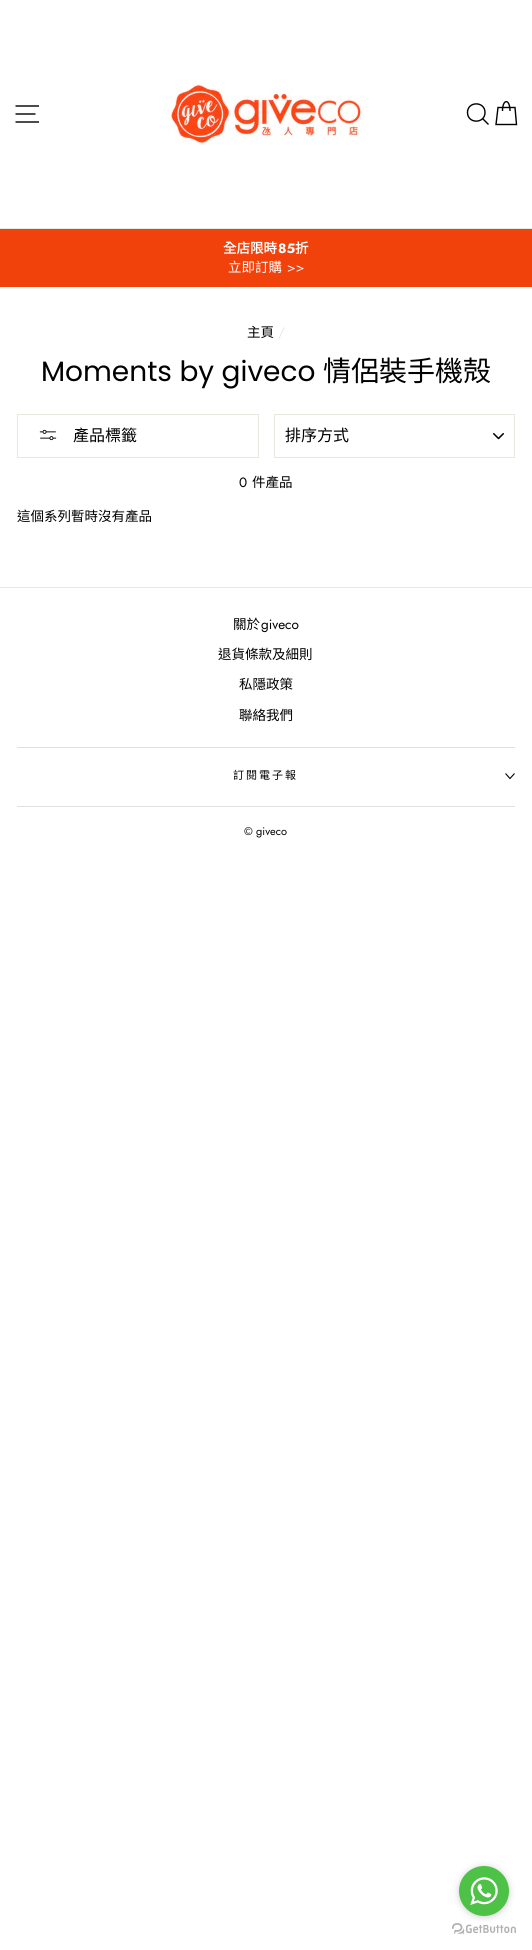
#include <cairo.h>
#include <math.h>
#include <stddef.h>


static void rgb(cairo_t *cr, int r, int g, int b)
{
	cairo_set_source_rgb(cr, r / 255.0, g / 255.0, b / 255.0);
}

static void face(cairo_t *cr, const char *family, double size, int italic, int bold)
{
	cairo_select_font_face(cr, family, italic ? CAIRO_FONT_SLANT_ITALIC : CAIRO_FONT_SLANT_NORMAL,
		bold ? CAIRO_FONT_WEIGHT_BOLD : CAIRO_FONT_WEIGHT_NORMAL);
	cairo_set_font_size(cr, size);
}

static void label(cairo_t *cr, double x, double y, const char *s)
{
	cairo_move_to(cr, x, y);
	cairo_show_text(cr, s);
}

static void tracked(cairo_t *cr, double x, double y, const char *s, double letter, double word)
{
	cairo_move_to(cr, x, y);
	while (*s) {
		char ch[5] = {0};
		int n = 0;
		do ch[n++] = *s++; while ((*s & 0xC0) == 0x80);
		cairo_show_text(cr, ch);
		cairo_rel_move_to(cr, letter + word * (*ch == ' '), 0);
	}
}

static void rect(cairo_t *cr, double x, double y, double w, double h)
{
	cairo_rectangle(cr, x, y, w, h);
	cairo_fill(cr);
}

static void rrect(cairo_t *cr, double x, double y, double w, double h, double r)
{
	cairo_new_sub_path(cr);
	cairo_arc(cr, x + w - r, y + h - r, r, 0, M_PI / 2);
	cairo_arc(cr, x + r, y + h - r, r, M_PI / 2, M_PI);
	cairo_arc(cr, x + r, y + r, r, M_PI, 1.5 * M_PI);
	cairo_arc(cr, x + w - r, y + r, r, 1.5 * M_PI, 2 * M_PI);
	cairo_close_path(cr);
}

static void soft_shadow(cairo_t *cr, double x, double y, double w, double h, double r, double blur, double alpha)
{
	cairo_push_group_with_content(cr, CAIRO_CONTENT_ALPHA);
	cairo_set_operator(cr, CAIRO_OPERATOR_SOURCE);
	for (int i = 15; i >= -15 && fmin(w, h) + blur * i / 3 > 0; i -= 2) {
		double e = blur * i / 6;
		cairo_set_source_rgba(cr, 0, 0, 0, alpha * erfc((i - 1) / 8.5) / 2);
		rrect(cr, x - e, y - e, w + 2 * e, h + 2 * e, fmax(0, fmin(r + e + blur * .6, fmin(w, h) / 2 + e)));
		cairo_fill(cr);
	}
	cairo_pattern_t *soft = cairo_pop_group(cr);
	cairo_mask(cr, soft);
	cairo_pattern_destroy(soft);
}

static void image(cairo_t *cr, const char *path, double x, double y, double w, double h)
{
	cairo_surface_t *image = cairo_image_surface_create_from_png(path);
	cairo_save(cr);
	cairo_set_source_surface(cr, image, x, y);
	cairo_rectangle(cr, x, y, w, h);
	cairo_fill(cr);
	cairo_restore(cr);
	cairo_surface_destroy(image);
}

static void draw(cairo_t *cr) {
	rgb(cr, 255, 255, 255);
	cairo_paint(cr);
	rgb(cr, 232, 232, 225);
	rect(cr, 0, 228, 532, 1);
	cairo_new_path(cr);
	cairo_move_to(cr, 15.5, 106);
	cairo_line_to(cr, 39, 106);
	cairo_move_to(cr, 15.5, 114);
	cairo_line_to(cr, 35.5, 114);
	cairo_move_to(cr, 15.5, 122);
	cairo_line_to(cr, 39, 122);
	rgb(cr, 0, 0, 0);
	cairo_set_line_width(cr, 1.4);
	cairo_stroke(cr);
	image(cr, "image0.png", 166, 83, 198, 62);
	cairo_new_path(cr);
	cairo_move_to(cr, 485, 112.5);
	cairo_curve_to(cr, 485, 124, 467.5, 124, 467.5, 112.5);
	cairo_curve_to(cr, 467.5, 101, 485, 101, 485, 112.5);
	cairo_close_path(cr);
	cairo_move_to(cr, 488.5, 124.5);
	cairo_line_to(cr, 482.5, 118.5);
	cairo_move_to(cr, 502.5, 111);
	cairo_curve_to(cr, 502.5, 98.5, 510, 98.5, 510, 111);
	cairo_move_to(cr, 498, 107.5);
	cairo_line_to(cr, 515, 107.5);
	cairo_line_to(cr, 516.5, 124.5);
	cairo_line_to(cr, 496, 124.5);
	cairo_close_path(cr);
	cairo_stroke(cr);
	rgb(cr, 242, 66, 12);
	rect(cr, 0, 229, 532, 58);
	face(cr, "Noto Sans CJK TC", 13.5, 0, 1);
	rgb(cr, 255, 255, 255);
	label(cr, 223, 253, "全店限時");
	face(cr, "Jost", 13.5, 0, 1);
	label(cr, 278, 253, "85");
	face(cr, "Noto Sans CJK TC", 13.5, 0, 1);
	label(cr, 295, 253, "折");
	face(cr, "Noto Sans CJK TC", 13.5, 0, 0);
	label(cr, 228, 272, "立即訂購");
	face(cr, "Jost", 13.5, 0, 0);
	label(cr, 287, 272, ">>");
	face(cr, "Noto Sans CJK TC", 13.5, 0, 0);
	rgb(cr, 0, 0, 0);
	label(cr, 247, 337, "主頁");
	face(cr, "Jost", 13.5, 0, 0);
	rgb(cr, 232, 232, 225);
	label(cr, 278, 337, "/");
	face(cr, "Poppins", 28, 0, 0);
	rgb(cr, 0, 0, 0);
	label(cr, 41, 381, "Moments by giveco");
	face(cr, "Noto Sans CJK TC", 28, 0, 0);
	label(cr, 323, 381, "情侶裝手機殻");
	cairo_rectangle(cr, 17.5, 414.5, 241, 43);
	rgb(cr, 232, 232, 225);
	cairo_set_line_width(cr, 1);
	cairo_stroke(cr);
	image(cr, "image1.png", 39, 429, 18, 12);
	face(cr, "Noto Sans CJK TC", 16, 0, 0);
	rgb(cr, 0, 0, 0);
	label(cr, 73, 441, "產品標籤");
	image(cr, "image2.png", 493, 433, 11, 7);
	cairo_rectangle(cr, 274.5, 414.5, 240, 43);
	rgb(cr, 232, 232, 225);
	cairo_stroke(cr);
	rgb(cr, 0, 0, 0);
	label(cr, 285, 441, "排序方式");
	face(cr, "Jost", 13.5, 0, 0);
	label(cr, 239, 487, "0");
	face(cr, "Noto Sans CJK TC", 13.5, 0, 0);
	label(cr, 252, 487, "件產品");
	label(cr, 17, 521, "這個系列暫時沒有產品");
	rgb(cr, 232, 232, 225);
	rect(cr, 0, 587, 532, 1);
	rgb(cr, 0, 0, 0);
	label(cr, 233, 629, "關於");
	face(cr, "Jost", 13.5, 0, 0);
	label(cr, 261, 629, "giveco");
	face(cr, "Noto Sans CJK TC", 13.5, 0, 0);
	label(cr, 218, 659, "退貨條款及細則");
	label(cr, 239, 689, "私隱政策");
	label(cr, 239, 720, "聯絡我們");
	rgb(cr, 224, 224, 224);
	rect(cr, 17, 747, 498, 1);
	face(cr, "Noto Sans CJK TC", 11, 0, 0);
	rgb(cr, 0, 0, 0);
	tracked(cr, 233, 779, "訂閱電子報", 2, 0);
	cairo_new_path(cr);
	cairo_move_to(cr, 505.5, 773.5);
	cairo_line_to(cr, 510, 778.5);
	cairo_line_to(cr, 514.5, 773.5);
	cairo_set_line_width(cr, 1.1);
	cairo_stroke(cr);
	rgb(cr, 224, 224, 224);
	rect(cr, 17, 806, 498, 1);
	face(cr, "Jost", 11, 0, 0);
	rgb(cr, 0, 0, 0);
	label(cr, 244, 835, "© giveco");
	image(cr, "image4.png", 452, 1923, 64, 11);
	rgb(cr, 136, 136, 136);
	soft_shadow(cr, 459, 1867, 50, 50, 25, 3.5, 0.4);
	rgb(cr, 77, 194, 71);
	cairo_arc(cr, 484, 1891, 25, 0, 2 * M_PI);
	cairo_fill(cr);
	image(cr, "image3.png", 470, 1877, 28, 28);
}

int main(void) {
	cairo_surface_t *surface = cairo_image_surface_create(CAIRO_FORMAT_RGB24, 532, 1950);
	cairo_t *cr = cairo_create(surface);
	cairo_font_options_t *options = cairo_font_options_create();
	cairo_font_options_set_hint_metrics(options, CAIRO_HINT_METRICS_OFF);
	cairo_font_options_set_hint_style(options, CAIRO_HINT_STYLE_NONE);
	cairo_set_font_options(cr, options);
	cairo_set_miter_limit(cr, 4);
	draw(cr);
	cairo_surface_write_to_png(surface, "render.png");
	cairo_font_options_destroy(options);
	cairo_destroy(cr);
	cairo_surface_destroy(surface);
	return 0;
}
